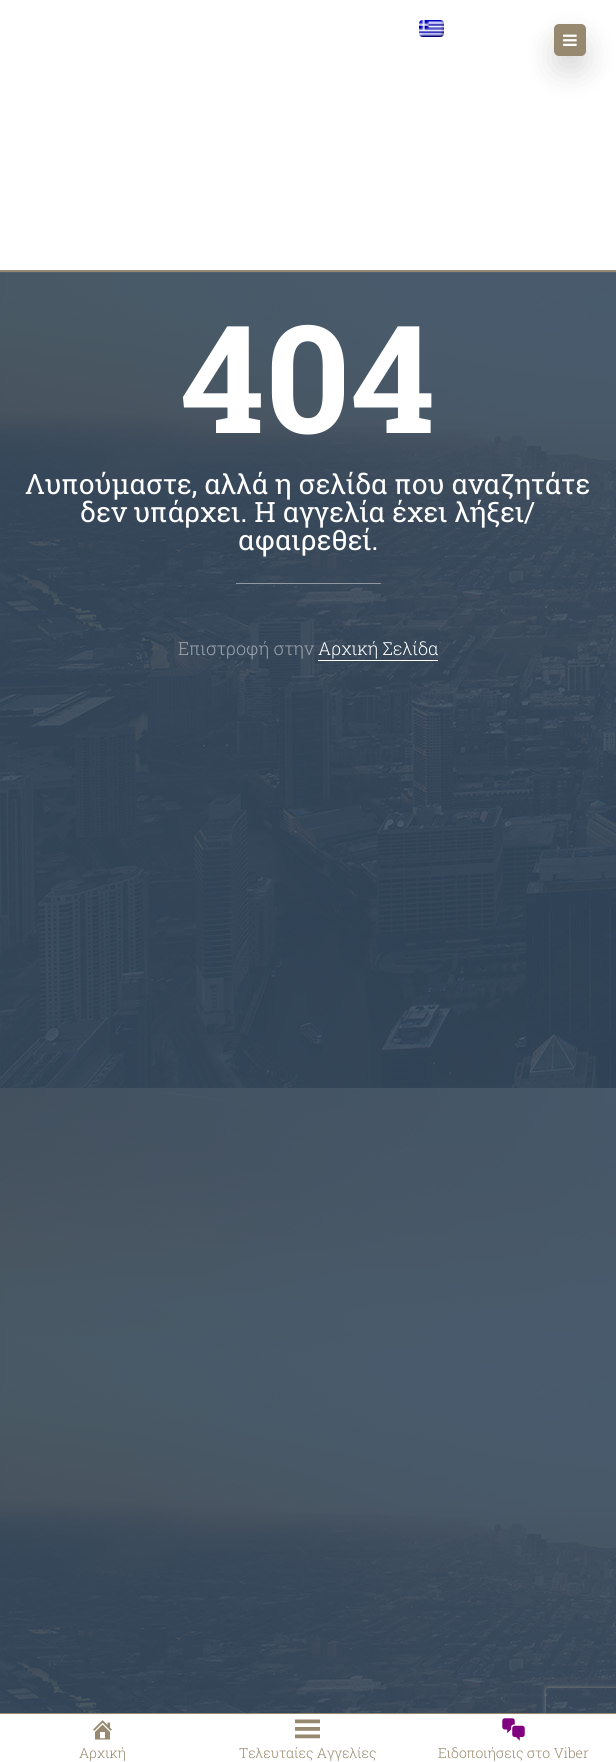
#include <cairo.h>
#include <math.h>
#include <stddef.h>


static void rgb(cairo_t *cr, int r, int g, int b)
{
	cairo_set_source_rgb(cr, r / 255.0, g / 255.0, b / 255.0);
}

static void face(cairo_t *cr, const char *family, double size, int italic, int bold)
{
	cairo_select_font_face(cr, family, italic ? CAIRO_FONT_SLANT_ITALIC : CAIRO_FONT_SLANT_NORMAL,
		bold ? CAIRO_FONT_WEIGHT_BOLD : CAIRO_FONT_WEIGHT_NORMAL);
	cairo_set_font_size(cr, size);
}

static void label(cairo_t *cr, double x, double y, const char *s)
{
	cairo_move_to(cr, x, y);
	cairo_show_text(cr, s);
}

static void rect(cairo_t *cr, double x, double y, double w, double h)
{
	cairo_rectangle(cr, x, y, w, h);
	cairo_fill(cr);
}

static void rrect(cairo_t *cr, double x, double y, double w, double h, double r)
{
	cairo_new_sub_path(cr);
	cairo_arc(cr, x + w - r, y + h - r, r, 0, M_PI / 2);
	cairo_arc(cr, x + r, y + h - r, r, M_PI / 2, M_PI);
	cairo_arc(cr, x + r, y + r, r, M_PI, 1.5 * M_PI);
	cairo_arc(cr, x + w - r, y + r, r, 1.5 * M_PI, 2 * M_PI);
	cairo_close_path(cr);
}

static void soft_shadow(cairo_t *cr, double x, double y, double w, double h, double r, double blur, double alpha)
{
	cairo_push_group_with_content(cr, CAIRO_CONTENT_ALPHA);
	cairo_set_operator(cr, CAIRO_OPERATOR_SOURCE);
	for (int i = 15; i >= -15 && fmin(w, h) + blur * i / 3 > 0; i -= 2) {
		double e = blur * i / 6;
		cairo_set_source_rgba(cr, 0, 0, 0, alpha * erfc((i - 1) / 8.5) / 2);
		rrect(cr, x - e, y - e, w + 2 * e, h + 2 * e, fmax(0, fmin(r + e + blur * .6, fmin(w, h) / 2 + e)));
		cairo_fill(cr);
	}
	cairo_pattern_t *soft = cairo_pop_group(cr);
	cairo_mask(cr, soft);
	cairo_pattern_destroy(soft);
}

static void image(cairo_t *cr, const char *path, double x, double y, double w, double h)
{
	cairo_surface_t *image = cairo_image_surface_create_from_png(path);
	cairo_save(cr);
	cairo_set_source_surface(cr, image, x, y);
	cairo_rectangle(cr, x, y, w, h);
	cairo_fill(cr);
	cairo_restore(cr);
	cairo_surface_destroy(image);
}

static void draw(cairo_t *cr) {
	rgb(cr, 255, 255, 255);
	cairo_paint(cr);
	image(cr, "image0.png", 0, 272, 616, 1441);
	cairo_set_source_rgba(cr, 1, 1, 1, 0.05);
	rect(cr, 0, 272, 616, 1);
	rgb(cr, 150, 137, 111);
	rect(cr, 0, 270, 616, 2);
	image(cr, "image1.png", 419, 20, 25, 17);
	rgb(cr, 0, 0, 0);
	soft_shadow(cr, 554, 39, 32, 32, 5, 15, 0.15);
	rgb(cr, 150, 137, 111);
	rrect(cr, 554, 24, 32, 32, 5);
	cairo_fill(cr);
	image(cr, "image2.png", 563, 34, 14, 12);
	face(cr, "Roboto Slab", 150, 0, 1);
	rgb(cr, 255, 255, 255);
	label(cr, 180, 433, "404");
	face(cr, "Roboto Slab", 28, 0, 0);
	label(cr, 25, 494, "Λυπούμαστε, αλλά η σελίδα που αναζητάτε");
	label(cr, 80, 522, "δεν υπάρχει. Η αγγελία έχει λήξει/");
	label(cr, 238, 550, "αφαιρεθεί.");
	rgb(cr, 143, 151, 160);
	rect(cr, 236, 583, 145, 1);
	face(cr, "Roboto Slab Light", 18, 0, 0);
	rgb(cr, 156, 164, 173);
	label(cr, 178, 655, "Επιστροφή στην");
	rgb(cr, 255, 255, 255);
	label(cr, 318, 655, "Αρχική Σελίδα");
	rect(cr, 318, 660, 120, 1);
	cairo_save(cr);
	cairo_set_fill_rule(cr, CAIRO_FILL_RULE_EVEN_ODD);
	cairo_new_path(cr);
	cairo_move_to(cr, 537, 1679);
	cairo_line_to(cr, 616, 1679);
	cairo_line_to(cr, 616, 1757);
	cairo_line_to(cr, 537, 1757);
	cairo_close_path(cr);
	cairo_move_to(cr, 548, 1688);
	cairo_line_to(cr, 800, 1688);
	cairo_curve_to(cr, 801, 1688, 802, 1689, 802, 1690);
	cairo_line_to(cr, 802, 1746);
	cairo_curve_to(cr, 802, 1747, 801, 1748, 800, 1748);
	cairo_line_to(cr, 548, 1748);
	cairo_curve_to(cr, 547, 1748, 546, 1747, 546, 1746);
	cairo_line_to(cr, 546, 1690);
	cairo_curve_to(cr, 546, 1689, 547, 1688, 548, 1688);
	cairo_close_path(cr);
	cairo_clip(cr);
	rgb(cr, 128, 128, 128);
	soft_shadow(cr, 546, 1688, 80, 60, 2, 2.5, 1);
	cairo_restore(cr);
	rgb(cr, 150, 137, 111);
	rect(cr, 0, 1713, 616, 1);
	rgb(cr, 255, 255, 255);
	rect(cr, 541, 1714, 75, 39);
	image(cr, "image3.png", 93, 1720, 19, 20);
	face(cr, "Roboto Slab Light", 14, 0, 0);
	rgb(cr, 150, 137, 111);
	label(cr, 79, 1758, "Αρχική");
	image(cr, "image4.png", 295, 1719, 25, 20);
	label(cr, 239, 1758, "Τελευταίες Αγγελίες");
	image(cr, "image5.png", 502, 1718, 23, 23);
	label(cr, 438, 1758, "Ειδοποιήσεις στο Viber");
}

int main(void) {
	cairo_surface_t *surface = cairo_image_surface_create(CAIRO_FORMAT_RGB24, 616, 1762);
	cairo_t *cr = cairo_create(surface);
	cairo_font_options_t *options = cairo_font_options_create();
	cairo_font_options_set_hint_metrics(options, CAIRO_HINT_METRICS_OFF);
	cairo_font_options_set_hint_style(options, CAIRO_HINT_STYLE_NONE);
	cairo_set_font_options(cr, options);
	cairo_set_miter_limit(cr, 4);
	draw(cr);
	cairo_surface_write_to_png(surface, "render.png");
	cairo_font_options_destroy(options);
	cairo_destroy(cr);
	cairo_surface_destroy(surface);
	return 0;
}
